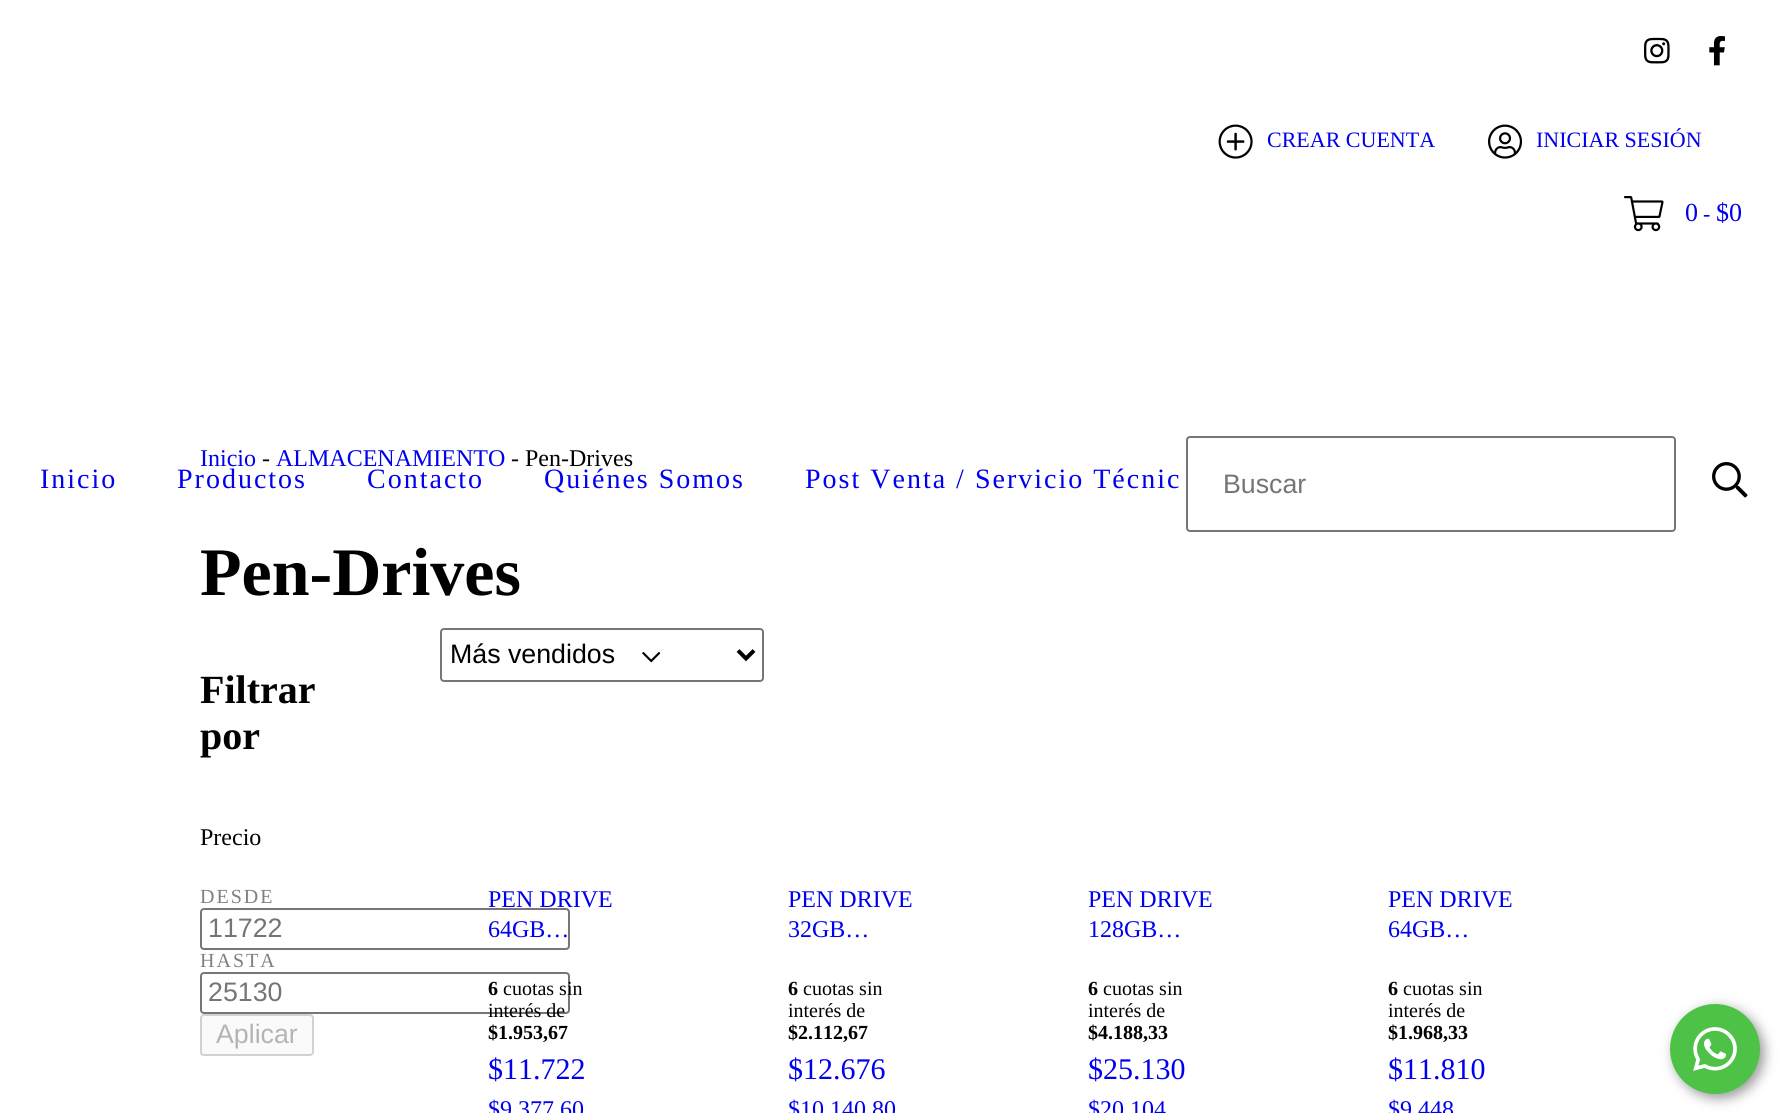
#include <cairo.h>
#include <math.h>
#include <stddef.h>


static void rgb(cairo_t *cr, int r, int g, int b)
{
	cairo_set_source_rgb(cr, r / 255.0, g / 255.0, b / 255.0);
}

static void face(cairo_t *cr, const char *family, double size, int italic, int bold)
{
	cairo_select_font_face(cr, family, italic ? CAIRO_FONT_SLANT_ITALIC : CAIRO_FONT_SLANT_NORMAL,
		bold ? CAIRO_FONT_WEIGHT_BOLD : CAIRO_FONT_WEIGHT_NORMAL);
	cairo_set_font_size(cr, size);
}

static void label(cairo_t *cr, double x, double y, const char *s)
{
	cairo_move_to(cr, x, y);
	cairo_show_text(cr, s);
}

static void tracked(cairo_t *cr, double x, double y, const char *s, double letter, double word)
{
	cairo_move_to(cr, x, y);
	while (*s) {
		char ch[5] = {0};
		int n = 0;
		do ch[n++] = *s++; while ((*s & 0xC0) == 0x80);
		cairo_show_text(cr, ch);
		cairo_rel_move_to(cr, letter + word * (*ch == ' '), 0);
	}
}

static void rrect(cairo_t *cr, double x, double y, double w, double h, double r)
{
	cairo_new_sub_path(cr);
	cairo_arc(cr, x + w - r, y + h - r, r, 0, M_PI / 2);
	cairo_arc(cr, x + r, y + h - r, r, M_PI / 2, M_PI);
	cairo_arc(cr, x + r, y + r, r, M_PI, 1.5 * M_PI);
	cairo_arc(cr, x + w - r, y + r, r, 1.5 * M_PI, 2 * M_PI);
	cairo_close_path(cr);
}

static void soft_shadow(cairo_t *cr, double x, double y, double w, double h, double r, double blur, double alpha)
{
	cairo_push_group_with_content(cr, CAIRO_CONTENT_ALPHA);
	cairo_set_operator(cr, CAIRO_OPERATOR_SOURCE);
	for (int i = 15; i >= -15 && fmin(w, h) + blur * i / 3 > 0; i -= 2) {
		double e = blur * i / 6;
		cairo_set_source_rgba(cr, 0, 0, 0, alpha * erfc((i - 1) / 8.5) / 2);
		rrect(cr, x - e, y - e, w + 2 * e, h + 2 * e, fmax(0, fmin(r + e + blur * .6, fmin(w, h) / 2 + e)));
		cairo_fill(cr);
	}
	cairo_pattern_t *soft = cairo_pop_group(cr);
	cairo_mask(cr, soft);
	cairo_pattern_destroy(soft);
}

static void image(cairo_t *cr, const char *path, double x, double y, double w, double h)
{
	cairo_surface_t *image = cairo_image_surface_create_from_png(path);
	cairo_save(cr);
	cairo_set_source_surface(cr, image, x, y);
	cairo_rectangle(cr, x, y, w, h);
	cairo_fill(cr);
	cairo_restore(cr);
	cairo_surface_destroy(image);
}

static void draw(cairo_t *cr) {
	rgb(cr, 255, 255, 255);
	cairo_paint(cr);
	image(cr, "image0.png", 1644, 37, 26, 27);
	image(cr, "image1.png", 1709, 36, 16, 30);
	image(cr, "image2.png", 1218, 124, 35, 35);
	face(cr, "Liberation Serif", 22, 0, 0);
	rgb(cr, 0, 0, 238);
	label(cr, 1267, 147, "CREAR CUENTA");
	image(cr, "image3.png", 1488, 124, 35, 35);
	label(cr, 1536, 147, "INICIAR SESIÓN");
	image(cr, "image4.png", 1624, 196, 40, 36);
	face(cr, "Liberation Serif", 26, 0, 0);
	label(cr, 1685, 221, "0");
	face(cr, "Liberation Serif", 22, 0, 0);
	label(cr, 1703, 221, "-");
	face(cr, "Liberation Serif", 26, 0, 0);
	label(cr, 1716, 221, "$0");
	face(cr, "Liberation Serif", 28, 0, 0);
	tracked(cr, 40, 488, "Inicio", 2, 0);
	tracked(cr, 177, 488, "Productos", 2, 0);
	tracked(cr, 367, 488, "Contacto", 2, 0);
	tracked(cr, 544, 488, "Quiénes Somos", 2, 0);
	tracked(cr, 805, 488, "Post Venta / Servicio Técnic", 2, 0);
	rrect(cr, 1187, 437, 488, 94, 3);
	rgb(cr, 118, 118, 118);
	cairo_stroke(cr);
	face(cr, "Liberation Sans", 26.75, 0, 0);
	rgb(cr, 117, 117, 117);
	label(cr, 1223, 493, "Buscar");
	image(cr, "image5.png", 1712, 462, 36, 36);
	face(cr, "Liberation Serif", 24, 0, 0);
	rgb(cr, 0, 0, 238);
	label(cr, 200, 466, "Inicio");
	rgb(cr, 0, 0, 0);
	label(cr, 262, 466, "-");
	rgb(cr, 0, 0, 238);
	label(cr, 276, 466, "ALMACENAMIENTO");
	rgb(cr, 0, 0, 0);
	label(cr, 511, 466, "- Pen-Drives");
	face(cr, "Liberation Serif", 68, 0, 1);
	label(cr, 200, 595, "Pen-Drives");
	face(cr, "Liberation Serif", 40, 0, 1);
	label(cr, 200, 703, "Filtrar");
	label(cr, 200, 749, "por");
	face(cr, "Liberation Serif", 24, 0, 0);
	label(cr, 200, 845, "Precio");
	face(cr, "Liberation Serif", 20, 0, 0);
	rgb(cr, 128, 128, 128);
	tracked(cr, 200, 903, "DESDE", 2, 0);
	rrect(cr, 201, 909, 368, 40, 3);
	rgb(cr, 118, 118, 118);
	cairo_stroke(cr);
	face(cr, "Liberation Sans", 26.75, 0, 0);
	rgb(cr, 117, 117, 117);
	label(cr, 208, 937, "11722");
	face(cr, "Liberation Serif", 20, 0, 0);
	rgb(cr, 128, 128, 128);
	tracked(cr, 200, 967, "HASTA", 2, 0);
	rrect(cr, 201, 973, 368, 40, 3);
	rgb(cr, 118, 118, 118);
	cairo_stroke(cr);
	face(cr, "Liberation Sans", 26.75, 0, 0);
	rgb(cr, 117, 117, 117);
	label(cr, 208, 1001, "25130");
	rgb(cr, 250, 250, 250);
	rrect(cr, 201, 1015, 112, 40, 3);
	cairo_fill_preserve(cr);
	rgb(cr, 210, 210, 210);
	cairo_stroke(cr);
	rgb(cr, 180, 180, 180);
	label(cr, 216, 1043, "Aplicar");
	rrect(cr, 441, 629, 322, 52, 3);
	rgb(cr, 118, 118, 118);
	cairo_stroke(cr);
	cairo_new_path(cr);
	cairo_move_to(cr, 738, 650.5);
	cairo_line_to(cr, 746, 658.5);
	cairo_line_to(cr, 754, 650.5);
	rgb(cr, 0, 0, 0);
	cairo_set_line_width(cr, 4);
	cairo_stroke(cr);
	label(cr, 450, 663, "Más vendidos");
	image(cr, "image6.png", 642, 652, 19, 11);
	face(cr, "Liberation Serif", 24, 0, 0);
	rgb(cr, 0, 0, 238);
	label(cr, 488, 907, "PEN DRIVE");
	label(cr, 488, 937, "64GB…");
	face(cr, "Liberation Serif", 20, 0, 1);
	rgb(cr, 0, 0, 0);
	label(cr, 488, 995, "6");
	face(cr, "Liberation Serif", 20, 0, 0);
	label(cr, 503, 995, "cuotas sin");
	label(cr, 488, 1017, "interés de");
	face(cr, "Liberation Serif", 20, 0, 1);
	label(cr, 488, 1039, "$1.953,67");
	face(cr, "Liberation Serif", 30, 0, 0);
	rgb(cr, 0, 0, 238);
	label(cr, 488, 1079, "$11.722");
	face(cr, "Liberation Serif", 24, 0, 0);
	label(cr, 488, 1117, "$9.377,60");
	label(cr, 788, 907, "PEN DRIVE");
	label(cr, 788, 937, "32GB…");
	face(cr, "Liberation Serif", 20, 0, 1);
	rgb(cr, 0, 0, 0);
	label(cr, 788, 995, "6");
	face(cr, "Liberation Serif", 20, 0, 0);
	label(cr, 803, 995, "cuotas sin");
	label(cr, 788, 1017, "interés de");
	face(cr, "Liberation Serif", 20, 0, 1);
	label(cr, 788, 1039, "$2.112,67");
	face(cr, "Liberation Serif", 30, 0, 0);
	rgb(cr, 0, 0, 238);
	label(cr, 788, 1079, "$12.676");
	face(cr, "Liberation Serif", 24, 0, 0);
	label(cr, 788, 1117, "$10.140,80");
	label(cr, 1088, 907, "PEN DRIVE");
	label(cr, 1088, 937, "128GB…");
	face(cr, "Liberation Serif", 20, 0, 1);
	rgb(cr, 0, 0, 0);
	label(cr, 1088, 995, "6");
	face(cr, "Liberation Serif", 20, 0, 0);
	label(cr, 1103, 995, "cuotas sin");
	label(cr, 1088, 1017, "interés de");
	face(cr, "Liberation Serif", 20, 0, 1);
	label(cr, 1088, 1039, "$4.188,33");
	face(cr, "Liberation Serif", 30, 0, 0);
	rgb(cr, 0, 0, 238);
	label(cr, 1088, 1079, "$25.130");
	face(cr, "Liberation Serif", 24, 0, 0);
	label(cr, 1088, 1117, "$20.104");
	label(cr, 1388, 907, "PEN DRIVE");
	label(cr, 1388, 937, "64GB…");
	face(cr, "Liberation Serif", 20, 0, 1);
	rgb(cr, 0, 0, 0);
	label(cr, 1388, 995, "6");
	face(cr, "Liberation Serif", 20, 0, 0);
	label(cr, 1403, 995, "cuotas sin");
	label(cr, 1388, 1017, "interés de");
	face(cr, "Liberation Serif", 20, 0, 1);
	label(cr, 1388, 1039, "$1.968,33");
	face(cr, "Liberation Serif", 30, 0, 0);
	rgb(cr, 0, 0, 238);
	label(cr, 1388, 1079, "$11.810");
	face(cr, "Liberation Serif", 24, 0, 0);
	label(cr, 1388, 1117, "$9.448");
	rgb(cr, 0, 0, 0);
	soft_shadow(cr, 1674, 1008, 90, 90, 45, 6, 0.4);
	rgb(cr, 77, 194, 71);
	cairo_arc(cr, 1715, 1049, 45, 0, 2 * M_PI);
	cairo_fill(cr);
	image(cr, "image7.png", 1693, 1027, 44, 44);
}

int main(void) {
	cairo_surface_t *surface = cairo_image_surface_create(CAIRO_FORMAT_RGB24, 1779, 1113);
	cairo_t *cr = cairo_create(surface);
	cairo_font_options_t *options = cairo_font_options_create();
	cairo_font_options_set_hint_metrics(options, CAIRO_HINT_METRICS_OFF);
	cairo_font_options_set_hint_style(options, CAIRO_HINT_STYLE_NONE);
	cairo_set_font_options(cr, options);
	cairo_set_miter_limit(cr, 4);
	draw(cr);
	cairo_surface_write_to_png(surface, "render.png");
	cairo_font_options_destroy(options);
	cairo_destroy(cr);
	cairo_surface_destroy(surface);
	return 0;
}
